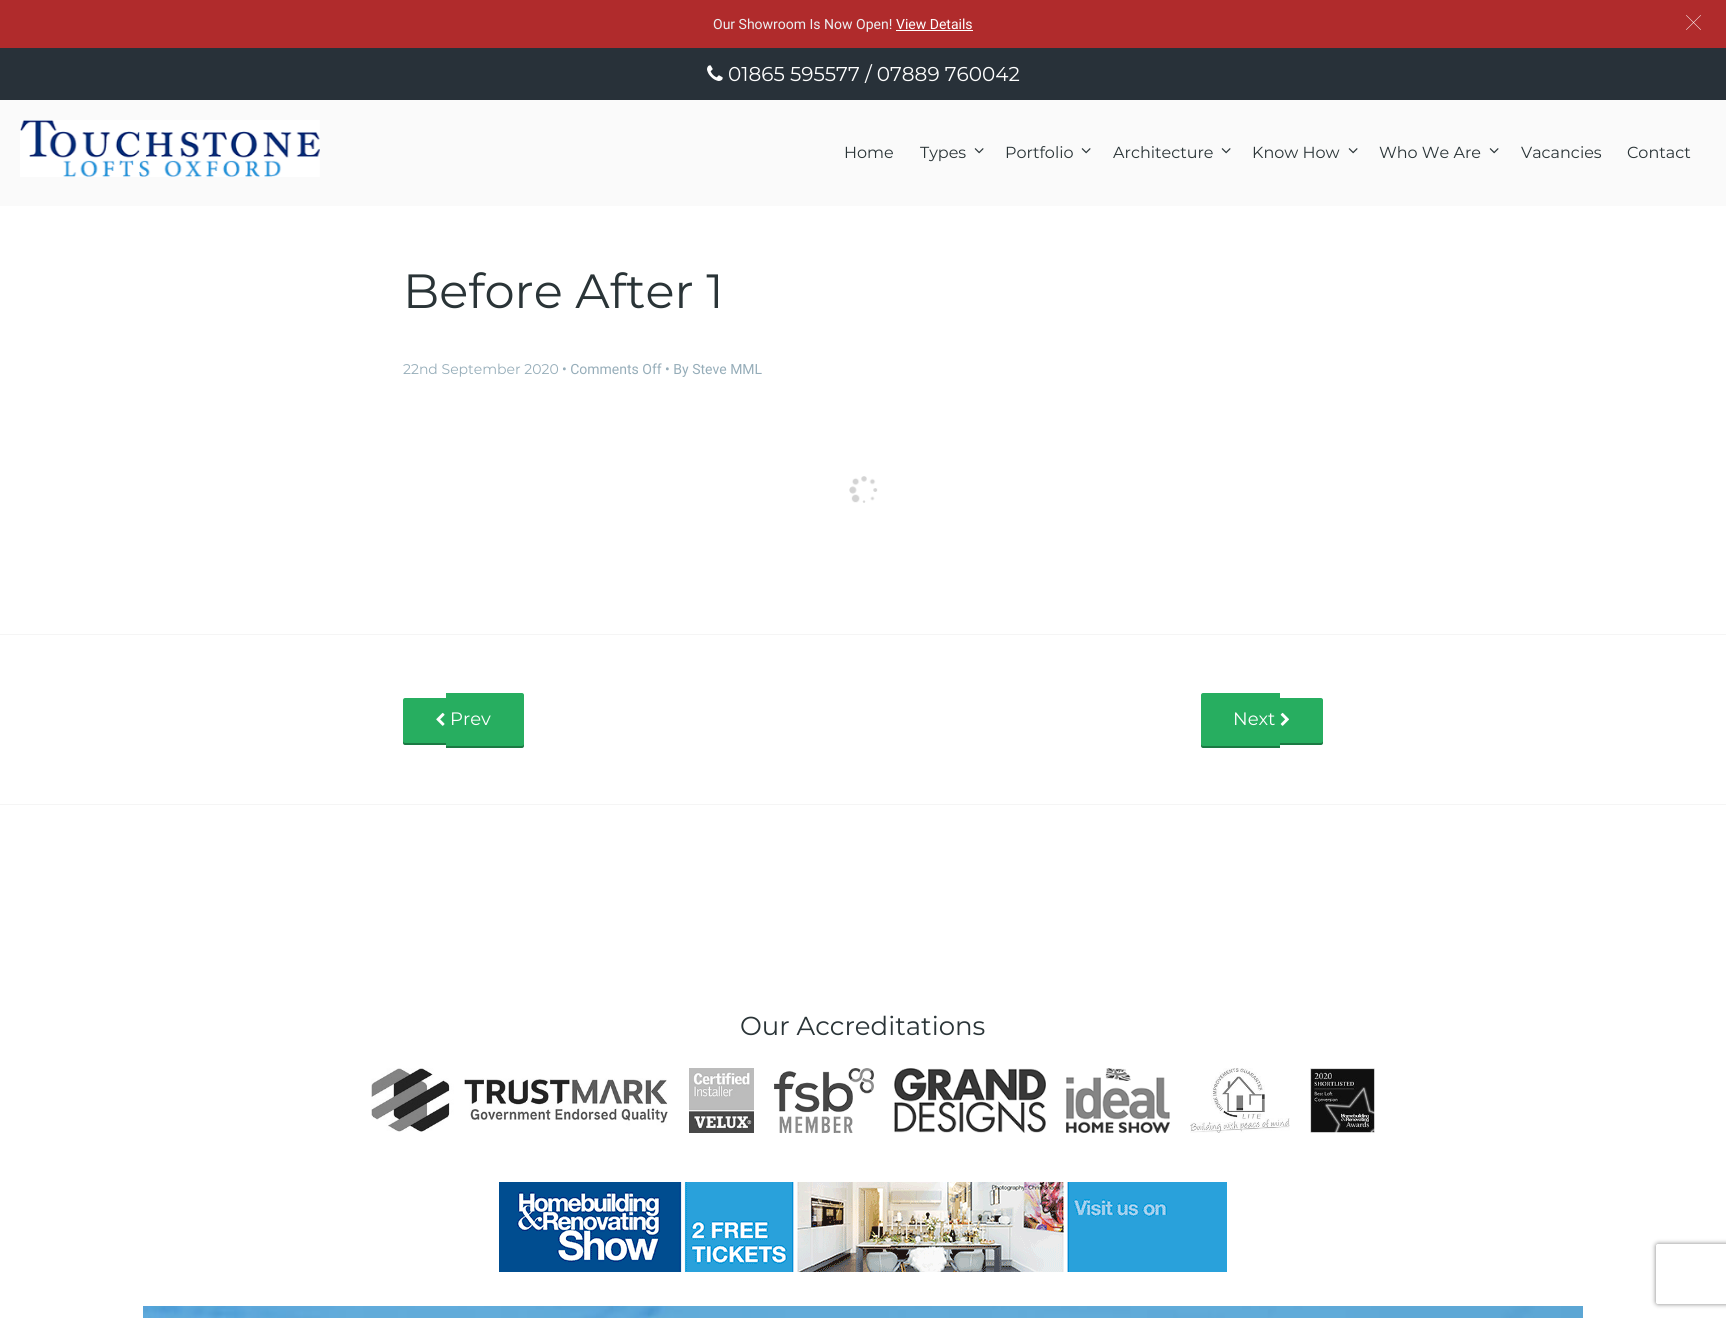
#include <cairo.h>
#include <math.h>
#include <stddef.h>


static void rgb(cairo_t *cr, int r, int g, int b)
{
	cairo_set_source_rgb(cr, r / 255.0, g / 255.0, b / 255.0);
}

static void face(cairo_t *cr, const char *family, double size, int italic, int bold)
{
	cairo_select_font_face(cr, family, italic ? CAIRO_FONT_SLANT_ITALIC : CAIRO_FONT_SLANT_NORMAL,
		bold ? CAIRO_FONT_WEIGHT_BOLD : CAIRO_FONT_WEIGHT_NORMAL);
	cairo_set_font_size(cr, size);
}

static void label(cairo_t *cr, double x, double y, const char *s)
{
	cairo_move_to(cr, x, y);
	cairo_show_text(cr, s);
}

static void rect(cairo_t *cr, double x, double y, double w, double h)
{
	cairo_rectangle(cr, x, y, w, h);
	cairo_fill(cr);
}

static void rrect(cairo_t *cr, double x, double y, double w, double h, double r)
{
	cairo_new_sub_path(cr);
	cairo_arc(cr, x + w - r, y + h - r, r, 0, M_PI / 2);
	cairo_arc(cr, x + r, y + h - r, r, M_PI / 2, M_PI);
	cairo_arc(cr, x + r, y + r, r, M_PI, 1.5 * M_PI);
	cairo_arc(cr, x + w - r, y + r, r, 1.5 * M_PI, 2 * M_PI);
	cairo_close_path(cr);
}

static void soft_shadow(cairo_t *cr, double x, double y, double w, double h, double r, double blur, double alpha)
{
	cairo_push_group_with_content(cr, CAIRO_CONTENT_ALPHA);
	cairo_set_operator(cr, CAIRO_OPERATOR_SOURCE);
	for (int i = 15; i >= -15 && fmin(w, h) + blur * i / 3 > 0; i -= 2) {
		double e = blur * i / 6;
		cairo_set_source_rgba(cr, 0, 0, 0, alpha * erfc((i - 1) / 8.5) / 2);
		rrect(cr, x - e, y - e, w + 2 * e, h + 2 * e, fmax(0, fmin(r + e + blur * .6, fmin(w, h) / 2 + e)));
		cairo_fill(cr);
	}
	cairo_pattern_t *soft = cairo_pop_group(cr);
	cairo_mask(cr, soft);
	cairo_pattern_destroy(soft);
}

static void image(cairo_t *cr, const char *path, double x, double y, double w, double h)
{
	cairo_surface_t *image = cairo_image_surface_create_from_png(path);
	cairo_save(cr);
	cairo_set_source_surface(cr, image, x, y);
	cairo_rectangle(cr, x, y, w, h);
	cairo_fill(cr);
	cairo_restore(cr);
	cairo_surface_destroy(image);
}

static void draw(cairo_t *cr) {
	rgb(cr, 255, 255, 255);
	cairo_paint(cr);
	rgb(cr, 176, 43, 44);
	rect(cr, 0, 0, 1726, 48);
	face(cr, "Roboto", 14, 0, 0);
	rgb(cr, 236, 239, 241);
	label(cr, 713, 29, "Our Showroom Is Now Open!");
	rgb(cr, 255, 255, 255);
	label(cr, 896, 29, "View Details");
	rect(cr, 896, 30, 77, 1);
	image(cr, "image0.png", 1686, 15, 15, 15);
	rgb(cr, 40, 49, 57);
	rect(cr, 0, 48, 1726, 52);
	image(cr, "image1.png", 707, 65, 16, 16);
	face(cr, "Montserrat", 20, 0, 0);
	rgb(cr, 255, 255, 255);
	label(cr, 728, 81, "01865 595577 / 07889 760042");
	rgb(cr, 250, 250, 250);
	rect(cr, 0, 100, 1726, 106);
	image(cr, "image2.png", 20, 120, 300, 57);
	face(cr, "Montserrat", 16, 0, 0);
	rgb(cr, 42, 52, 55);
	label(cr, 844, 158, "Home");
	label(cr, 920, 158, "Types");
	image(cr, "image3.png", 974, 148, 10, 6);
	label(cr, 1005, 158, "Portfolio");
	image(cr, "image3.png", 1081, 148, 10, 6);
	label(cr, 1113, 158, "Architecture");
	image(cr, "image3.png", 1221, 148, 10, 6);
	label(cr, 1252, 158, "Know How");
	image(cr, "image3.png", 1348, 148, 10, 6);
	label(cr, 1379, 158, "Who We Are");
	image(cr, "image3.png", 1489, 148, 10, 6);
	label(cr, 1521, 158, "Vacancies");
	label(cr, 1627, 158, "Contact");
	face(cr, "Montserrat", 48, 0, 0);
	label(cr, 403, 308, "Before After 1");
	face(cr, "Montserrat", 14, 0, 0);
	rgb(cr, 150, 173, 185);
	label(cr, 403, 374, "22nd September 2020");
	face(cr, "Roboto", 14, 0, 0);
	label(cr, 562, 374, "• Comments Off • By Steve MML");
	image(cr, "image4.png", 849, 476, 29, 27);
	rgb(cr, 245, 245, 245);
	rect(cr, 0, 634, 1726, 1);
	rect(cr, 0, 804, 1726, 1);
	rgb(cr, 39, 174, 96);
	cairo_new_path(cr);
	cairo_move_to(cr, 405, 698);
	cairo_line_to(cr, 446, 698);
	cairo_line_to(cr, 446, 745);
	cairo_line_to(cr, 405, 745);
	cairo_curve_to(cr, 404, 745, 403, 744, 403, 743);
	cairo_line_to(cr, 403, 700);
	cairo_curve_to(cr, 403, 699, 404, 698, 405, 698);
	cairo_close_path(cr);
	cairo_fill(cr);
	cairo_set_source_rgba(cr, 0, 0, 0, 0.3);
	cairo_new_path(cr);
	cairo_move_to(cr, 403, 741);
	cairo_line_to(cr, 403, 743);
	cairo_curve_to(cr, 403, 744, 404, 745, 405, 745);
	cairo_line_to(cr, 446, 745);
	cairo_line_to(cr, 446, 743);
	cairo_line_to(cr, 405, 743);
	cairo_curve_to(cr, 404, 743, 403, 742, 403, 741);
	cairo_close_path(cr);
	cairo_fill(cr);
	rgb(cr, 39, 174, 96);
	rect(cr, 446, 693, 4, 55);
	rgb(cr, 27, 122, 67);
	rect(cr, 446, 746, 4, 2);
	rgb(cr, 39, 174, 96);
	cairo_new_path(cr);
	cairo_move_to(cr, 450, 693);
	cairo_line_to(cr, 522, 693);
	cairo_curve_to(cr, 523, 693, 524, 694, 524, 695);
	cairo_line_to(cr, 524, 746);
	cairo_curve_to(cr, 524, 747, 523, 748, 522, 748);
	cairo_line_to(cr, 450, 748);
	cairo_close_path(cr);
	cairo_fill(cr);
	cairo_set_source_rgba(cr, 0, 0, 0, 0.3);
	cairo_new_path(cr);
	cairo_move_to(cr, 450, 746);
	cairo_line_to(cr, 450, 748);
	cairo_line_to(cr, 522, 748);
	cairo_curve_to(cr, 523, 748, 524, 747, 524, 746);
	cairo_line_to(cr, 524, 744);
	cairo_curve_to(cr, 524, 745, 523, 746, 522, 746);
	cairo_close_path(cr);
	cairo_fill(cr);
	image(cr, "image5.png", 436, 712, 9, 14);
	face(cr, "Montserrat", 18, 0, 0);
	rgb(cr, 255, 255, 255);
	label(cr, 450, 725, "Prev");
	rgb(cr, 39, 174, 96);
	cairo_new_path(cr);
	cairo_move_to(cr, 1203, 693);
	cairo_line_to(cr, 1276, 693);
	cairo_line_to(cr, 1276, 748);
	cairo_line_to(cr, 1203, 748);
	cairo_curve_to(cr, 1202, 748, 1201, 747, 1201, 746);
	cairo_line_to(cr, 1201, 695);
	cairo_curve_to(cr, 1201, 694, 1202, 693, 1203, 693);
	cairo_close_path(cr);
	cairo_fill(cr);
	cairo_set_source_rgba(cr, 0, 0, 0, 0.3);
	cairo_new_path(cr);
	cairo_move_to(cr, 1201, 744);
	cairo_line_to(cr, 1201, 746);
	cairo_curve_to(cr, 1201, 747, 1202, 748, 1203, 748);
	cairo_line_to(cr, 1276, 748);
	cairo_line_to(cr, 1276, 746);
	cairo_line_to(cr, 1203, 746);
	cairo_curve_to(cr, 1202, 746, 1201, 745, 1201, 744);
	cairo_close_path(cr);
	cairo_fill(cr);
	rgb(cr, 39, 174, 96);
	rect(cr, 1276, 693, 4, 55);
	rgb(cr, 27, 122, 67);
	rect(cr, 1276, 746, 4, 2);
	rgb(cr, 39, 174, 96);
	cairo_new_path(cr);
	cairo_move_to(cr, 1280, 698);
	cairo_line_to(cr, 1321, 698);
	cairo_curve_to(cr, 1322, 698, 1323, 699, 1323, 700);
	cairo_line_to(cr, 1323, 743);
	cairo_curve_to(cr, 1323, 744, 1322, 745, 1321, 745);
	cairo_line_to(cr, 1280, 745);
	cairo_close_path(cr);
	cairo_fill(cr);
	cairo_set_source_rgba(cr, 0, 0, 0, 0.3);
	cairo_new_path(cr);
	cairo_move_to(cr, 1280, 743);
	cairo_line_to(cr, 1280, 745);
	cairo_line_to(cr, 1321, 745);
	cairo_curve_to(cr, 1322, 745, 1323, 744, 1323, 743);
	cairo_line_to(cr, 1323, 741);
	cairo_curve_to(cr, 1323, 742, 1322, 743, 1321, 743);
	cairo_close_path(cr);
	cairo_fill(cr);
	rgb(cr, 255, 255, 255);
	label(cr, 1233, 725, "Next");
	image(cr, "image6.png", 1280, 712, 9, 14);
	face(cr, "Montserrat", 26, 0, 0);
	rgb(cr, 42, 52, 55);
	label(cr, 740, 1035, "Our Accreditations");
	image(cr, "image7.png", 371, 1068, 297, 64);
	image(cr, "image8.png", 689, 1068, 65, 65);
	image(cr, "image9.png", 774, 1068, 100, 65);
	image(cr, "image10.png", 894, 1068, 152, 65);
	image(cr, "image11.png", 1066, 1068, 104, 65);
	image(cr, "image12.png", 1190, 1068, 100, 65);
	image(cr, "image13.png", 1310, 1068, 65, 65);
	image(cr, "image14.png", 499, 1182, 728, 90);
	image(cr, "image15.png", 143, 1306, 1440, 12);
	cairo_save(cr);
	cairo_set_fill_rule(cr, CAIRO_FILL_RULE_EVEN_ODD);
	cairo_new_path(cr);
	cairo_move_to(cr, 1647, 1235);
	cairo_line_to(cr, 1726, 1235);
	cairo_line_to(cr, 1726, 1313);
	cairo_line_to(cr, 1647, 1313);
	cairo_close_path(cr);
	cairo_move_to(cr, 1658, 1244);
	cairo_line_to(cr, 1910, 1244);
	cairo_curve_to(cr, 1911, 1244, 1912, 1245, 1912, 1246);
	cairo_line_to(cr, 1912, 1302);
	cairo_curve_to(cr, 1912, 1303, 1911, 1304, 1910, 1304);
	cairo_line_to(cr, 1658, 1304);
	cairo_curve_to(cr, 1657, 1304, 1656, 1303, 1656, 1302);
	cairo_line_to(cr, 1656, 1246);
	cairo_curve_to(cr, 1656, 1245, 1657, 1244, 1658, 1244);
	cairo_close_path(cr);
	cairo_clip(cr);
	rgb(cr, 128, 128, 128);
	soft_shadow(cr, 1656, 1244, 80, 60, 2, 2.5, 1);
	cairo_restore(cr);
}

int main(void) {
	cairo_surface_t *surface = cairo_image_surface_create(CAIRO_FORMAT_RGB24, 1726, 1318);
	cairo_t *cr = cairo_create(surface);
	cairo_font_options_t *options = cairo_font_options_create();
	cairo_font_options_set_hint_metrics(options, CAIRO_HINT_METRICS_OFF);
	cairo_font_options_set_hint_style(options, CAIRO_HINT_STYLE_NONE);
	cairo_set_font_options(cr, options);
	cairo_set_miter_limit(cr, 4);
	draw(cr);
	cairo_surface_write_to_png(surface, "render.png");
	cairo_font_options_destroy(options);
	cairo_destroy(cr);
	cairo_surface_destroy(surface);
	return 0;
}
